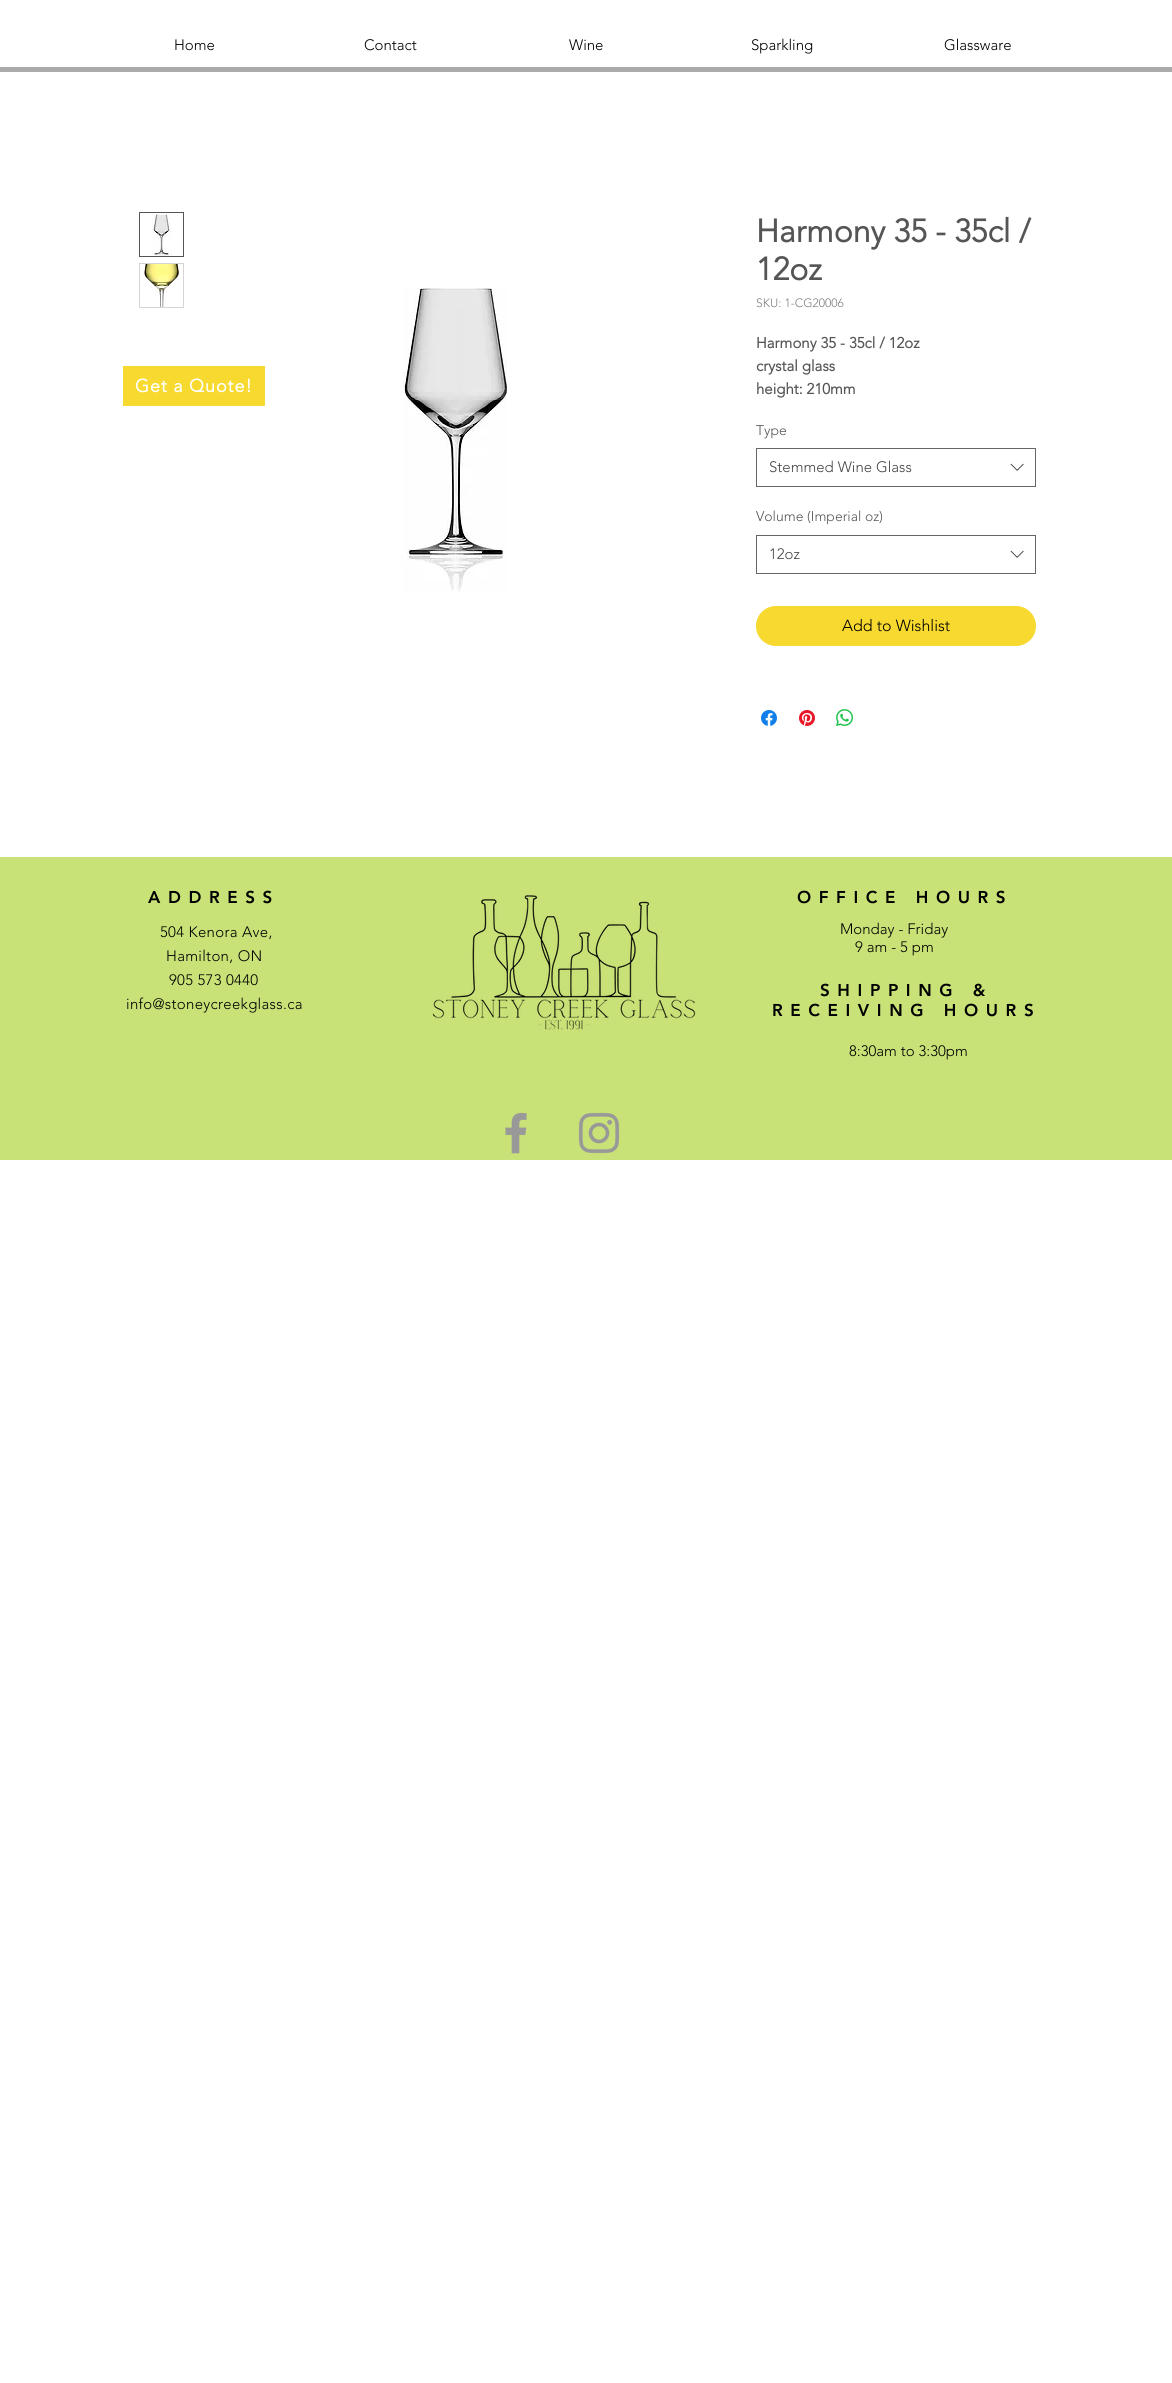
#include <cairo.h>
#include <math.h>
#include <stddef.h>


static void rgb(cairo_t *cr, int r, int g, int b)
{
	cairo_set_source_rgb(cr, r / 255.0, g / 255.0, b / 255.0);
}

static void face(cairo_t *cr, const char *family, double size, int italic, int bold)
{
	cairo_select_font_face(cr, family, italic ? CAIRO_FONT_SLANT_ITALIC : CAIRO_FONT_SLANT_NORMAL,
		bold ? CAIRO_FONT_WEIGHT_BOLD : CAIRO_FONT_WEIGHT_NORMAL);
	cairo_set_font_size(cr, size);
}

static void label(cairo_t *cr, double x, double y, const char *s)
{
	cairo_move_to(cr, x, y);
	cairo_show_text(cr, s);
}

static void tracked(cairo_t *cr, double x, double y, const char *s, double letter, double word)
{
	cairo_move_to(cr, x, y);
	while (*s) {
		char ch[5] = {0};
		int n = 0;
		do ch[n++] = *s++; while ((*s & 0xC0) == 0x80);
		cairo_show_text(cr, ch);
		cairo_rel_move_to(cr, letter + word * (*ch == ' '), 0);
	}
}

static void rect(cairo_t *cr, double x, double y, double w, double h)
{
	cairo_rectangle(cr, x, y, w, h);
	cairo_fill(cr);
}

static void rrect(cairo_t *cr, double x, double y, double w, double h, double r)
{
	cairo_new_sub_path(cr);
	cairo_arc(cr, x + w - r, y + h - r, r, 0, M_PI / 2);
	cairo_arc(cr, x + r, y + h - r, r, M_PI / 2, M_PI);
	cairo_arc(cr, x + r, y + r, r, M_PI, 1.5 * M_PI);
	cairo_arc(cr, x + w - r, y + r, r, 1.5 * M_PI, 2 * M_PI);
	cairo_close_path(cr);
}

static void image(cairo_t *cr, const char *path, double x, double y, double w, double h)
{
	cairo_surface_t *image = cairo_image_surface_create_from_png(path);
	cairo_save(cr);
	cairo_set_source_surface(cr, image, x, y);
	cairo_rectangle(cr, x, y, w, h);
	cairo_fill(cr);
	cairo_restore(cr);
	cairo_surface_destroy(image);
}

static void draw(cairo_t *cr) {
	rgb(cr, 255, 255, 255);
	cairo_paint(cr);
	face(cr, "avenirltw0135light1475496 Light", 15, 0, 0);
	rgb(cr, 0, 0, 0);
	label(cr, 174, 50, "Home");
	label(cr, 364, 50, "Contact");
	label(cr, 569, 50, "Wine");
	label(cr, 751, 50, "Sparkling");
	label(cr, 944, 50, "Glassware");
	rgb(cr, 170, 170, 170);
	rect(cr, 0, 67, 1172, 5);
	rgb(cr, 247, 217, 47);
	rect(cr, 123, 366, 142, 40);
	face(cr, "avenirltw0135light1475496", 18, 0, 1);
	rgb(cr, 255, 255, 255);
	tracked(cr, 135, 392, "Get a Quote!", 0.9, 0);
	cairo_rectangle(cr, 139.5, 212.5, 44, 44);
	rgb(cr, 85, 85, 85);
	cairo_set_line_width(cr, 1);
	cairo_stroke(cr);
	image(cr, "image0.png", 152, 214, 20, 42);
	cairo_rectangle(cr, 139.5, 263.5, 44, 44);
	rgb(cr, 213, 213, 213);
	cairo_stroke(cr);
	image(cr, "image1.png", 144, 264, 35, 43);
	image(cr, "image2.png", 403, 288, 104, 304);
	face(cr, "avenirltw0135light1475496", 32, 0, 1);
	rgb(cr, 85, 85, 85);
	label(cr, 756, 242, "Harmony 35 - 35cl /");
	label(cr, 756, 280, "12oz");
	face(cr, "avenirltw0135light1475496 Light", 12, 0, 0);
	rgb(cr, 128, 128, 128);
	label(cr, 756, 307, "SKU: 1-CG20006");
	face(cr, "avenirltw0135light1475496", 15, 0, 1);
	rgb(cr, 85, 85, 85);
	label(cr, 756, 348, "Harmony 35 - 35cl / 12oz");
	label(cr, 756, 371, "crystal glass");
	label(cr, 756, 394, "height: 210mm");
	face(cr, "avenirltw0135light1475496 Light", 14, 0, 0);
	label(cr, 756, 435, "Type");
	cairo_rectangle(cr, 756.5, 448.5, 279, 38);
	rgb(cr, 102, 102, 102);
	cairo_stroke(cr);
	face(cr, "avenirltw0135light1475496 Light", 15, 0, 0);
	rgb(cr, 68, 68, 68);
	label(cr, 769, 472, "Stemmed Wine Glass");
	image(cr, "image3.png", 1010, 463, 14, 8);
	face(cr, "avenirltw0135light1475496 Light", 14, 0, 0);
	rgb(cr, 85, 85, 85);
	label(cr, 756, 521, "Volume (Imperial oz)");
	cairo_rectangle(cr, 756.5, 535.5, 279, 38);
	rgb(cr, 102, 102, 102);
	cairo_stroke(cr);
	face(cr, "avenirltw0135light1475496 Light", 15, 0, 0);
	rgb(cr, 68, 68, 68);
	label(cr, 769, 559, "12oz");
	image(cr, "image3.png", 1010, 550, 14, 8);
	rgb(cr, 247, 217, 47);
	rrect(cr, 756, 606, 280, 40, 20);
	cairo_fill(cr);
	face(cr, "avenirltw0135light1475496 Light", 16, 0, 0);
	rgb(cr, 0, 0, 0);
	label(cr, 842, 631, "Add to Wishlist");
	image(cr, "image4.png", 761, 710, 16, 16);
	image(cr, "image5.png", 799, 710, 16, 16);
	image(cr, "image6.png", 836, 709, 17, 17);
	rgb(cr, 200, 226, 119);
	rect(cr, 0, 857, 1172, 303);
	face(cr, "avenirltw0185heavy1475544 Black", 17, 0, 0);
	rgb(cr, 0, 0, 0);
	tracked(cr, 148, 903, "ADDRESS", 7.6, 0);
	image(cr, "image7.png", 432, 895, 264, 135);
	tracked(cr, 797, 903, "OFFICE HOURS", 7.6, 0);
	face(cr, "avenirltw0135light1475496 Light", 15, 0, 0);
	tracked(cr, 160, 937, "504 Kenora Ave,", 0.3, 0);
	tracked(cr, 166, 961, "Hamilton, ON", 0.3, 0);
	tracked(cr, 169, 985, "905 573 0440", 0.3, 0);
	tracked(cr, 126, 1009, "info@stoneycreekglass.ca", 0.3, 0);
	label(cr, 840, 934, "Monday - Friday");
	label(cr, 855, 952, "9 am - 5 pm");
	face(cr, "avenirltw0185heavy1475544 Black", 17, 0, 0);
	tracked(cr, 820, 996, "SHIPPING &", 7.6, 0);
	tracked(cr, 772, 1016, "RECEIVING HOURS", 7.6, 0);
	face(cr, "avenirltw0135light1475496 Light", 15, 0, 0);
	label(cr, 849, 1056, "8:30am to 3:30pm");
	image(cr, "image8.png", 505, 1112, 22, 42);
	image(cr, "image9.png", 578, 1112, 42, 42);
}

int main(void) {
	cairo_surface_t *surface = cairo_image_surface_create(CAIRO_FORMAT_RGB24, 1172, 2383);
	cairo_t *cr = cairo_create(surface);
	cairo_font_options_t *options = cairo_font_options_create();
	cairo_font_options_set_hint_metrics(options, CAIRO_HINT_METRICS_OFF);
	cairo_font_options_set_hint_style(options, CAIRO_HINT_STYLE_NONE);
	cairo_set_font_options(cr, options);
	cairo_set_miter_limit(cr, 4);
	draw(cr);
	cairo_surface_write_to_png(surface, "render.png");
	cairo_font_options_destroy(options);
	cairo_destroy(cr);
	cairo_surface_destroy(surface);
	return 0;
}
